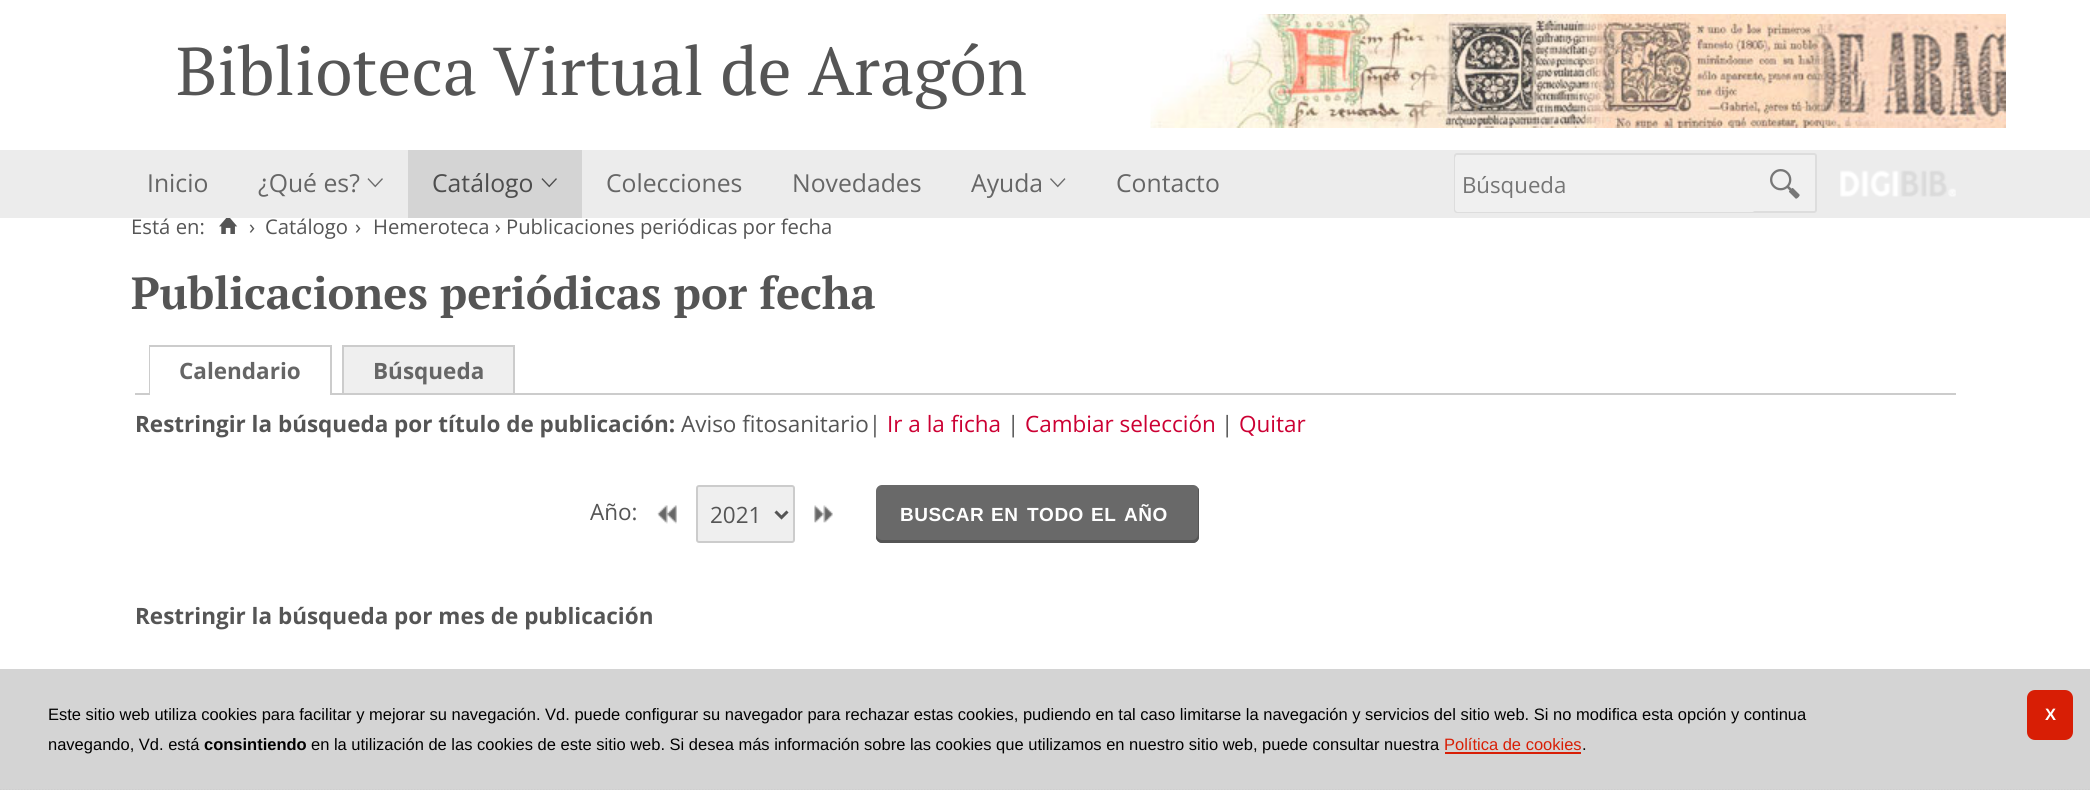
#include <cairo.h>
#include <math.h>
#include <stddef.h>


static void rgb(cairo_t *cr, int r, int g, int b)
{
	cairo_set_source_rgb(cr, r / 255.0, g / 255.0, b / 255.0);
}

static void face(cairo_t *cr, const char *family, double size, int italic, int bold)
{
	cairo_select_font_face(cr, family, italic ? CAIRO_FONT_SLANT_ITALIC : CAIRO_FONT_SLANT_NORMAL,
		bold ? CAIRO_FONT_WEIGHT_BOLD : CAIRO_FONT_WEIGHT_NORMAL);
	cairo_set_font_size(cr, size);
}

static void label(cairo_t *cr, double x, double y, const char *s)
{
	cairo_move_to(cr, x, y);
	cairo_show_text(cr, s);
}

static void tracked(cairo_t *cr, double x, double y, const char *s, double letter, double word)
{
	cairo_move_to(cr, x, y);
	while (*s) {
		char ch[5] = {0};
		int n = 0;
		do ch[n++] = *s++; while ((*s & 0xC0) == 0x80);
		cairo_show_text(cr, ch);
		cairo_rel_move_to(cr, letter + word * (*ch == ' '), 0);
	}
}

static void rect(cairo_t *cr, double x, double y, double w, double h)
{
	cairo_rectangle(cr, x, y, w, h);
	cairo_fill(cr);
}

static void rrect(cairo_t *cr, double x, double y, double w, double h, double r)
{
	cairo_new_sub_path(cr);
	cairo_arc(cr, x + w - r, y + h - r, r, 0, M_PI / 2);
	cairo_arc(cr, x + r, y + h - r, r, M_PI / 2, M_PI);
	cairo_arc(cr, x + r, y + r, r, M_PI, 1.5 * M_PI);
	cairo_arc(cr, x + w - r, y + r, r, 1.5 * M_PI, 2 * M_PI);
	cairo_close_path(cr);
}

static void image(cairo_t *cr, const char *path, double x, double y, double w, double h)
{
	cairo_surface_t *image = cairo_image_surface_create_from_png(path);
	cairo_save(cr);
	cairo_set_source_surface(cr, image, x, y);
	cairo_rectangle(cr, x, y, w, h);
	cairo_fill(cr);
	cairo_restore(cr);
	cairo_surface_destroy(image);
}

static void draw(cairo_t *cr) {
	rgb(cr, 255, 255, 255);
	cairo_paint(cr);
	rgb(cr, 212, 212, 212);
	rect(cr, 0, 669, 2090, 121);
	image(cr, "image0.png", 1150, 14, 856, 114);
	face(cr, "PT Serif", 67.5, 0, 0);
	rgb(cr, 85, 85, 85);
	label(cr, 176, 95, "Biblioteca Virtual de Aragón");
	rgb(cr, 236, 236, 236);
	rect(cr, 0, 150, 2090, 68);
	face(cr, "Open Sans", 24.75, 0, 0);
	rgb(cr, 102, 102, 102);
	label(cr, 147, 192, "Inicio");
	label(cr, 258, 192, "¿Qué es?");
	image(cr, "image1.png", 367, 178, 16, 10);
	rgb(cr, 212, 212, 212);
	rect(cr, 408, 150, 174, 68);
	rgb(cr, 77, 77, 77);
	label(cr, 432, 192, "Catálogo");
	image(cr, "image2.png", 541, 178, 16, 10);
	rgb(cr, 102, 102, 102);
	label(cr, 606, 192, "Colecciones");
	label(cr, 792, 192, "Novedades");
	label(cr, 971, 192, "Ayuda");
	image(cr, "image3.png", 1050, 178, 16, 10);
	label(cr, 1116, 192, "Contacto");
	rgb(cr, 240, 240, 240);
	rrect(cr, 1455, 154, 361, 58, 2);
	cairo_fill_preserve(cr);
	rgb(cr, 221, 221, 221);
	cairo_stroke(cr);
	rgb(cr, 240, 240, 240);
	rrect(cr, 1455, 155, 300, 57, 3);
	cairo_fill(cr);
	cairo_save(cr);
	cairo_rectangle(cr, 1463, 168, 264, 30);
	cairo_clip(cr);
	face(cr, "Open Sans", 22.25, 0, 0);
	rgb(cr, 117, 117, 117);
	label(cr, 1462, 193, "Búsqueda");
	cairo_restore(cr);
	image(cr, "image4.png", 1770, 169, 30, 30);
	image(cr, "image5.png", 1840, 170, 116, 27);
	face(cr, "Open Sans", 20.25, 0, 0);
	rgb(cr, 85, 85, 85);
	label(cr, 131, 234, "Está en:");
	image(cr, "image6.png", 219, 218, 19, 16);
	label(cr, 249, 234, "›");
	label(cr, 265, 234, "Catálogo");
	label(cr, 355, 234, "›");
	label(cr, 373, 234, "Hemeroteca › Publicaciones periódicas por fecha");
	face(cr, "PT Serif", 45, 0, 1);
	label(cr, 131, 309, "Publicaciones periódicas por fecha");
	rgb(cr, 204, 204, 204);
	rect(cr, 135, 393, 1821, 2);
	rect(cr, 149, 345, 183, 2);
	rect(cr, 330, 345, 2, 50);
	rect(cr, 149, 345, 2, 50);
	rgb(cr, 255, 255, 255);
	rect(cr, 150, 347, 180, 48);
	face(cr, "Open Sans", 22.5, 0, 1);
	rgb(cr, 102, 102, 102);
	label(cr, 179, 379, "Calendario");
	rgb(cr, 204, 204, 204);
	rect(cr, 342, 345, 173, 2);
	rect(cr, 513, 345, 2, 48);
	rect(cr, 342, 345, 2, 48);
	rgb(cr, 239, 239, 239);
	rect(cr, 344, 347, 169, 46);
	rgb(cr, 102, 102, 102);
	label(cr, 373, 379, "Búsqueda");
	rgb(cr, 85, 85, 85);
	label(cr, 135, 432, "Restringir la búsqueda por título de publicación:");
	face(cr, "Open Sans", 22.5, 0, 0);
	label(cr, 681, 432, "Aviso fitosanitario|");
	rgb(cr, 204, 0, 51);
	label(cr, 887, 432, "Ir a la ficha");
	rgb(cr, 85, 85, 85);
	label(cr, 1007, 432, "|");
	rgb(cr, 204, 0, 51);
	label(cr, 1025, 432, "Cambiar selección");
	rgb(cr, 85, 85, 85);
	label(cr, 1221, 432, "|");
	rgb(cr, 204, 0, 51);
	label(cr, 1239, 432, "Quitar");
	rgb(cr, 85, 85, 85);
	label(cr, 590, 520, "Año:");
	image(cr, "image7.png", 657, 505, 20, 19);
	rgb(cr, 239, 239, 239);
	rrect(cr, 697, 486, 97, 56, 2);
	cairo_fill_preserve(cr);
	rgb(cr, 204, 204, 204);
	cairo_stroke(cr);
	cairo_new_path(cr);
	cairo_move_to(cr, 775.5, 511.5);
	cairo_line_to(cr, 781.5, 517.5);
	cairo_line_to(cr, 787.5, 511.5);
	rgb(cr, 85, 85, 85);
	cairo_set_line_width(cr, 3);
	cairo_stroke(cr);
	label(cr, 710, 523, "2021");
	image(cr, "image8.png", 814, 505, 19, 18);
	rgb(cr, 105, 105, 105);
	rrect(cr, 876, 485, 323, 58, 6);
	cairo_fill(cr);
	rgb(cr, 85, 85, 85);
	cairo_new_path(cr);
	cairo_move_to(cr, 876, 534);
	cairo_line_to(cr, 876, 537);
	cairo_curve_to(cr, 876, 540, 879, 543, 882, 543);
	cairo_line_to(cr, 1193, 543);
	cairo_curve_to(cr, 1196, 543, 1199, 540, 1199, 537);
	cairo_line_to(cr, 1199, 491);
	cairo_curve_to(cr, 1199, 490, 1199, 489, 1198, 488);
	cairo_line_to(cr, 1198, 534);
	cairo_curve_to(cr, 1198, 537, 1196, 540, 1192, 540);
	cairo_line_to(cr, 882, 540);
	cairo_curve_to(cr, 879, 540, 876, 537, 876, 534);
	cairo_close_path(cr);
	cairo_fill(cr);
	face(cr, "Liberation Sans", 19, 0, 1);
	rgb(cr, 255, 255, 255);
	tracked(cr, 900, 521, "BUSCAR", 0.5, 0);
	tracked(cr, 991, 521, "EN", 0.5, 0);
	tracked(cr, 1027, 521, "TODO", 0.5, 0);
	tracked(cr, 1091, 521, "EL", 0.5, 0);
	tracked(cr, 1124, 521, "AÑO", 0.5, 0);
	face(cr, "Open Sans", 22.5, 0, 1);
	rgb(cr, 85, 85, 85);
	label(cr, 135, 624, "Restringir la búsqueda por mes de publicación");
	cairo_new_path(cr);
	cairo_move_to(cr, 0, 790);
	cairo_line_to(cr, 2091, 790);
	rgb(cr, 204, 204, 204);
	cairo_set_line_width(cr, 1.5);
	cairo_set_dash(cr, (double[]){1.5, 1.5}, 2, 0);
	cairo_stroke(cr);
	face(cr, "Liberation Sans", 16.5, 0, 0);
	rgb(cr, 0, 0, 0);
	label(cr, 48, 720, "Este sitio web utiliza cookies para facilitar y mejorar su navegación. Vd. puede configurar su navegador para rechazar estas cookies, pudiendo en tal caso limitarse la navegación y servicios del sitio web. Si no modifica esta opción y continua");
	label(cr, 48, 750, "navegando, Vd. está");
	face(cr, "Liberation Sans", 16.5, 0, 1);
	label(cr, 204, 750, "consintiendo");
	face(cr, "Liberation Sans", 16.5, 0, 0);
	label(cr, 311, 750, "en la utilización de las cookies de este sitio web. Si desea más información sobre las cookies que utilizamos en nuestro sitio web, puede consultar nuestra");
	rgb(cr, 216, 30, 5);
	label(cr, 1444, 750, "Política de cookies");
	rgb(cr, 0, 0, 0);
	label(cr, 1582, 750, ".");
	rgb(cr, 216, 30, 5);
	rect(cr, 1445, 752, 136, 2);
	rrect(cr, 2027, 690, 46, 50, 8);
	cairo_fill(cr);
	face(cr, "Liberation Sans", 16.5, 0, 1);
	rgb(cr, 255, 255, 255);
	tracked(cr, 2045, 720, "X", -1, 0);
}

int main(void) {
	cairo_surface_t *surface = cairo_image_surface_create(CAIRO_FORMAT_RGB24, 2090, 790);
	cairo_t *cr = cairo_create(surface);
	cairo_font_options_t *options = cairo_font_options_create();
	cairo_font_options_set_hint_metrics(options, CAIRO_HINT_METRICS_OFF);
	cairo_font_options_set_hint_style(options, CAIRO_HINT_STYLE_NONE);
	cairo_set_font_options(cr, options);
	cairo_set_miter_limit(cr, 4);
	draw(cr);
	cairo_surface_write_to_png(surface, "render.png");
	cairo_font_options_destroy(options);
	cairo_destroy(cr);
	cairo_surface_destroy(surface);
	return 0;
}
